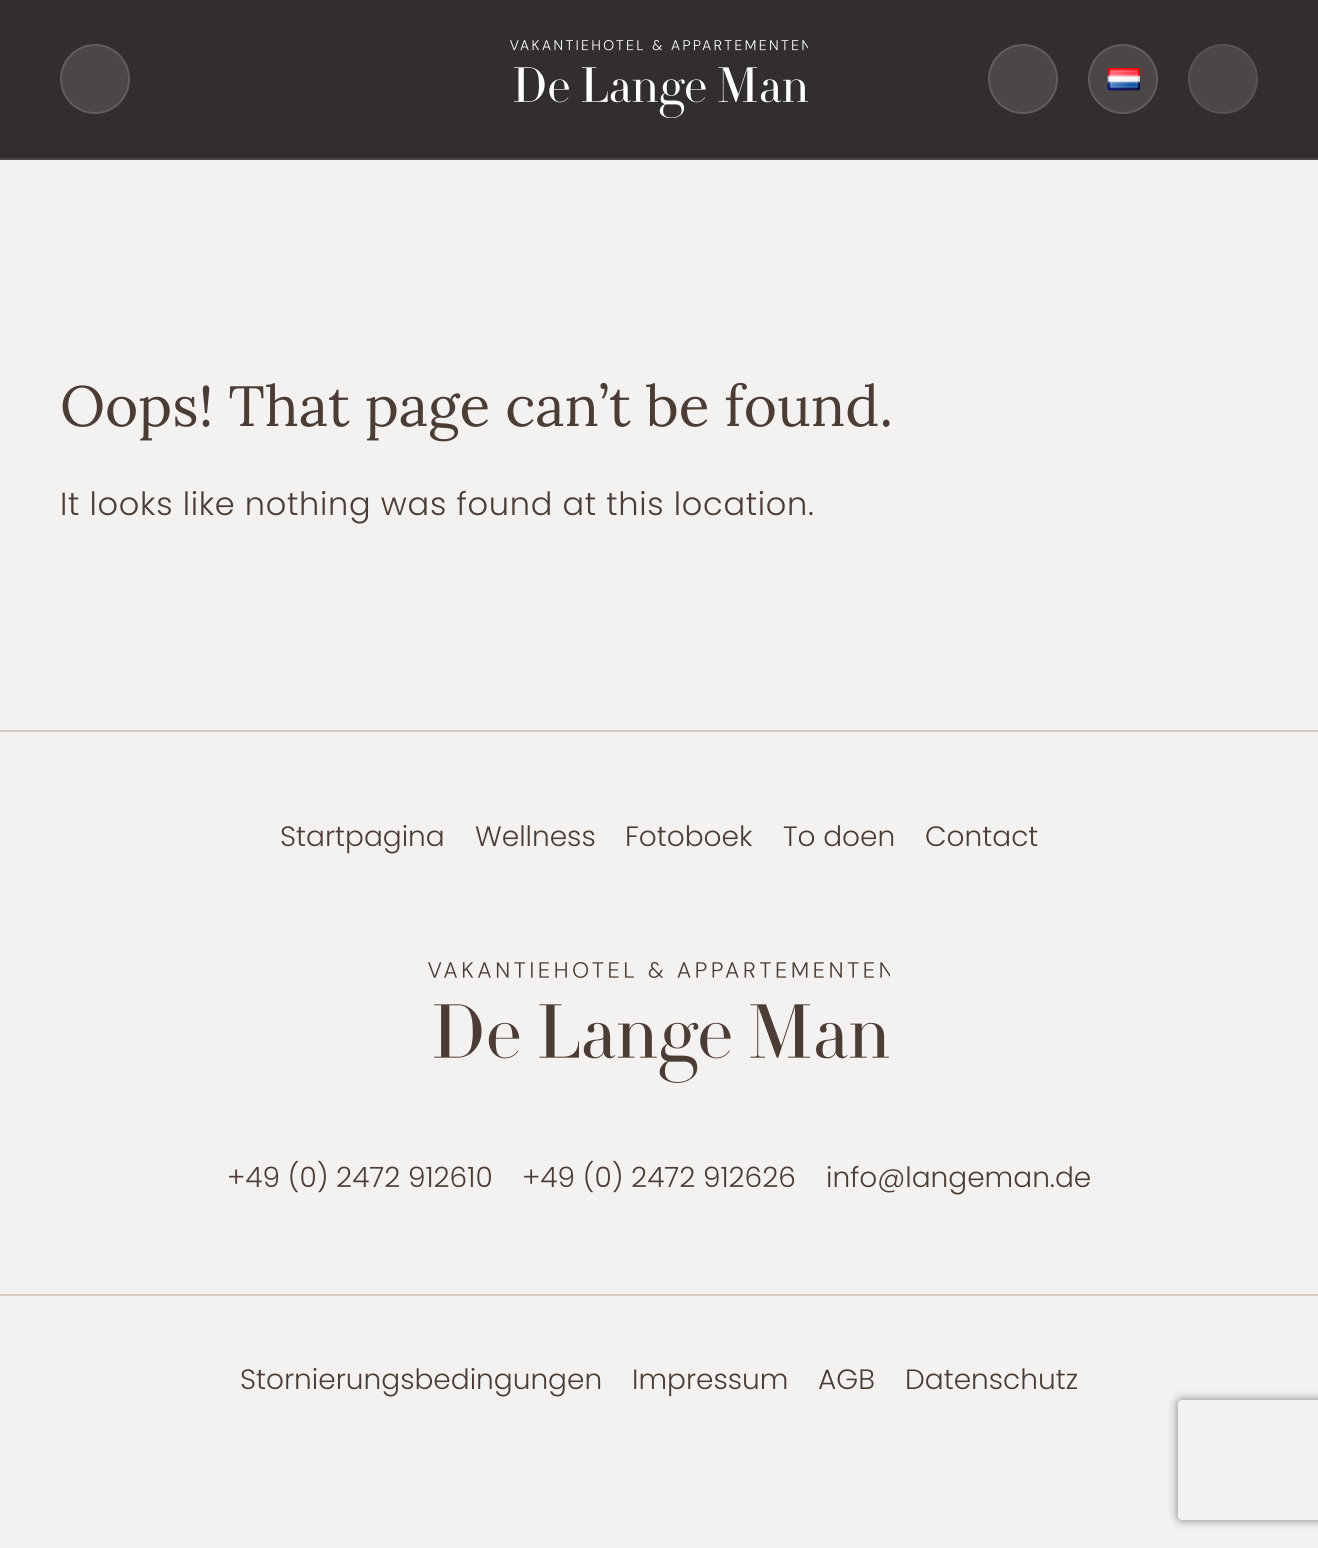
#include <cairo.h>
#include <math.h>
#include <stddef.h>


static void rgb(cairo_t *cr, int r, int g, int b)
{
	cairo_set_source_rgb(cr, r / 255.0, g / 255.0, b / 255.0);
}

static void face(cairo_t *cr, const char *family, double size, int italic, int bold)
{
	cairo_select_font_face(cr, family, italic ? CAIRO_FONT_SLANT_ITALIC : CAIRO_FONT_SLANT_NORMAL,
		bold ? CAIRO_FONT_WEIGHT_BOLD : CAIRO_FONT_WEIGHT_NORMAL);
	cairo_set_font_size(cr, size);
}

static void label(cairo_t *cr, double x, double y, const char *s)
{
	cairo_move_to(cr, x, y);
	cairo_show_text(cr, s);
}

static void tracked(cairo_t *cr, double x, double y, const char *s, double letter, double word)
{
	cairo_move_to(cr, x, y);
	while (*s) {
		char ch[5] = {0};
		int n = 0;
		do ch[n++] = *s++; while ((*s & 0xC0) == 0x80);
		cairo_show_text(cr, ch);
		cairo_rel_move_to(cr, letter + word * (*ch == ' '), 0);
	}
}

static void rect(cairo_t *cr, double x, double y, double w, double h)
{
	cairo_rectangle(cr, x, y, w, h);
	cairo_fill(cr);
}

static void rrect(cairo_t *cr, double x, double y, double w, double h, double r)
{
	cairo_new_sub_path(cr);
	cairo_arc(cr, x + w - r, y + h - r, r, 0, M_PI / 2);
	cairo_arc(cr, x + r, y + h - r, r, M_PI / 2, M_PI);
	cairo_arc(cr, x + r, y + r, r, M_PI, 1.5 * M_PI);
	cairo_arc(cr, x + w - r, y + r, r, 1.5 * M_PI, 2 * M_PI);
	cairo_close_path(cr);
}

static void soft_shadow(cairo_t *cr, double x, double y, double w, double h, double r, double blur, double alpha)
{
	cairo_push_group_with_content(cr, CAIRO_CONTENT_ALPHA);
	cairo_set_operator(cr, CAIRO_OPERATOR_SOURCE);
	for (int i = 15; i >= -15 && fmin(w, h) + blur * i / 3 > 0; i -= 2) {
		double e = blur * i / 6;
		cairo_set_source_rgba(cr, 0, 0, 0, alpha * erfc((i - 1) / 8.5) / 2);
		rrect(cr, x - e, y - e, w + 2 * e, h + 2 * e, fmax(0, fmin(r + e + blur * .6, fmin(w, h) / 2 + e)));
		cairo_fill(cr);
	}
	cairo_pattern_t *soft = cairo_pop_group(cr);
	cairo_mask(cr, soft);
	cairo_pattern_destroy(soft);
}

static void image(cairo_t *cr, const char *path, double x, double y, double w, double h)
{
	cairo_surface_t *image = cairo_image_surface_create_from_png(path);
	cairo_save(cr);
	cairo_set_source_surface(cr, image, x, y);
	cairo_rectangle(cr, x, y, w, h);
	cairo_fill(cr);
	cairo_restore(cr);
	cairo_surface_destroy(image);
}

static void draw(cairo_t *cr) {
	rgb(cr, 244, 242, 240);
	cairo_paint(cr);
	rgb(cr, 49, 46, 45);
	rect(cr, 0, 0, 1318, 158);
	rgb(cr, 74, 71, 70);
	rect(cr, 0, 158, 1318, 2);
	cairo_arc(cr, 95, 79, 35, 0, 2 * M_PI);
	cairo_fill(cr);
	cairo_arc(cr, 95, 79, 34, 0, 2 * M_PI);
	cairo_set_source_rgba(cr, 1, 1, 1, 0.12);
	cairo_stroke(cr);
	image(cr, "image0.png", 510, 40, 298, 78);
	rgb(cr, 74, 71, 70);
	cairo_arc(cr, 1023, 79, 35, 0, 2 * M_PI);
	cairo_fill(cr);
	cairo_arc(cr, 1023, 79, 34, 0, 2 * M_PI);
	cairo_set_source_rgba(cr, 1, 1, 1, 0.12);
	cairo_stroke(cr);
	rgb(cr, 74, 71, 70);
	cairo_arc(cr, 1123, 79, 35, 0, 2 * M_PI);
	cairo_fill(cr);
	cairo_arc(cr, 1123, 79, 34, 0, 2 * M_PI);
	cairo_set_source_rgba(cr, 1, 1, 1, 0.12);
	cairo_stroke(cr);
	image(cr, "image1.png", 1107, 68, 33, 23);
	rgb(cr, 74, 71, 70);
	cairo_arc(cr, 1223, 79, 35, 0, 2 * M_PI);
	cairo_fill(cr);
	cairo_arc(cr, 1223, 79, 34, 0, 2 * M_PI);
	cairo_set_source_rgba(cr, 1, 1, 1, 0.07);
	cairo_stroke(cr);
	face(cr, "Lora", 56.75, 0, 0);
	rgb(cr, 75, 60, 53);
	label(cr, 60, 426, "Oops! That page can’t be found.");
	face(cr, "Poppins Light", 32, 0, 0);
	tracked(cr, 60, 515, "It looks like nothing was found at this location.", 0.7, 0);
	rgb(cr, 215, 205, 199);
	rect(cr, 0, 730, 1318, 2);
	rect(cr, 0, 1294, 1318, 2);
	face(cr, "Poppins Light", 28, 0, 0);
	rgb(cr, 75, 60, 53);
	label(cr, 280, 846, "Startpagina");
	label(cr, 475, 846, "Wellness");
	label(cr, 625, 846, "Fotoboek");
	label(cr, 783, 846, "To doen");
	label(cr, 925, 846, "Contact");
	image(cr, "image2.png", 428, 962, 462, 121);
	label(cr, 227, 1187, "+49 (0) 2472 912610");
	label(cr, 522, 1187, "+49 (0) 2472 912626");
	label(cr, 826, 1187, "info@langeman.de");
	label(cr, 240, 1389, "Stornierungsbedingungen");
	label(cr, 632, 1389, "Impressum");
	label(cr, 818, 1389, "AGB");
	label(cr, 905, 1389, "Datenschutz");
	cairo_save(cr);
	cairo_set_fill_rule(cr, CAIRO_FILL_RULE_EVEN_ODD);
	cairo_new_path(cr);
	cairo_move_to(cr, 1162, 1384);
	cairo_line_to(cr, 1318, 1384);
	cairo_line_to(cr, 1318, 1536);
	cairo_line_to(cr, 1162, 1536);
	cairo_close_path(cr);
	cairo_move_to(cr, 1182, 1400);
	cairo_line_to(cr, 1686, 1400);
	cairo_curve_to(cr, 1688, 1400, 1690, 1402, 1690, 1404);
	cairo_line_to(cr, 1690, 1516);
	cairo_curve_to(cr, 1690, 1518, 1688, 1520, 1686, 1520);
	cairo_line_to(cr, 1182, 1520);
	cairo_curve_to(cr, 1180, 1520, 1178, 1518, 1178, 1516);
	cairo_line_to(cr, 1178, 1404);
	cairo_curve_to(cr, 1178, 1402, 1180, 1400, 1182, 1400);
	cairo_close_path(cr);
	cairo_clip(cr);
	rgb(cr, 128, 128, 128);
	soft_shadow(cr, 1178, 1400, 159, 120, 4, 5, 1);
	cairo_restore(cr);
}

int main(void) {
	cairo_surface_t *surface = cairo_image_surface_create(CAIRO_FORMAT_RGB24, 1318, 1548);
	cairo_t *cr = cairo_create(surface);
	cairo_font_options_t *options = cairo_font_options_create();
	cairo_font_options_set_hint_metrics(options, CAIRO_HINT_METRICS_OFF);
	cairo_font_options_set_hint_style(options, CAIRO_HINT_STYLE_NONE);
	cairo_set_font_options(cr, options);
	cairo_set_miter_limit(cr, 4);
	draw(cr);
	cairo_surface_write_to_png(surface, "render.png");
	cairo_font_options_destroy(options);
	cairo_destroy(cr);
	cairo_surface_destroy(surface);
	return 0;
}
